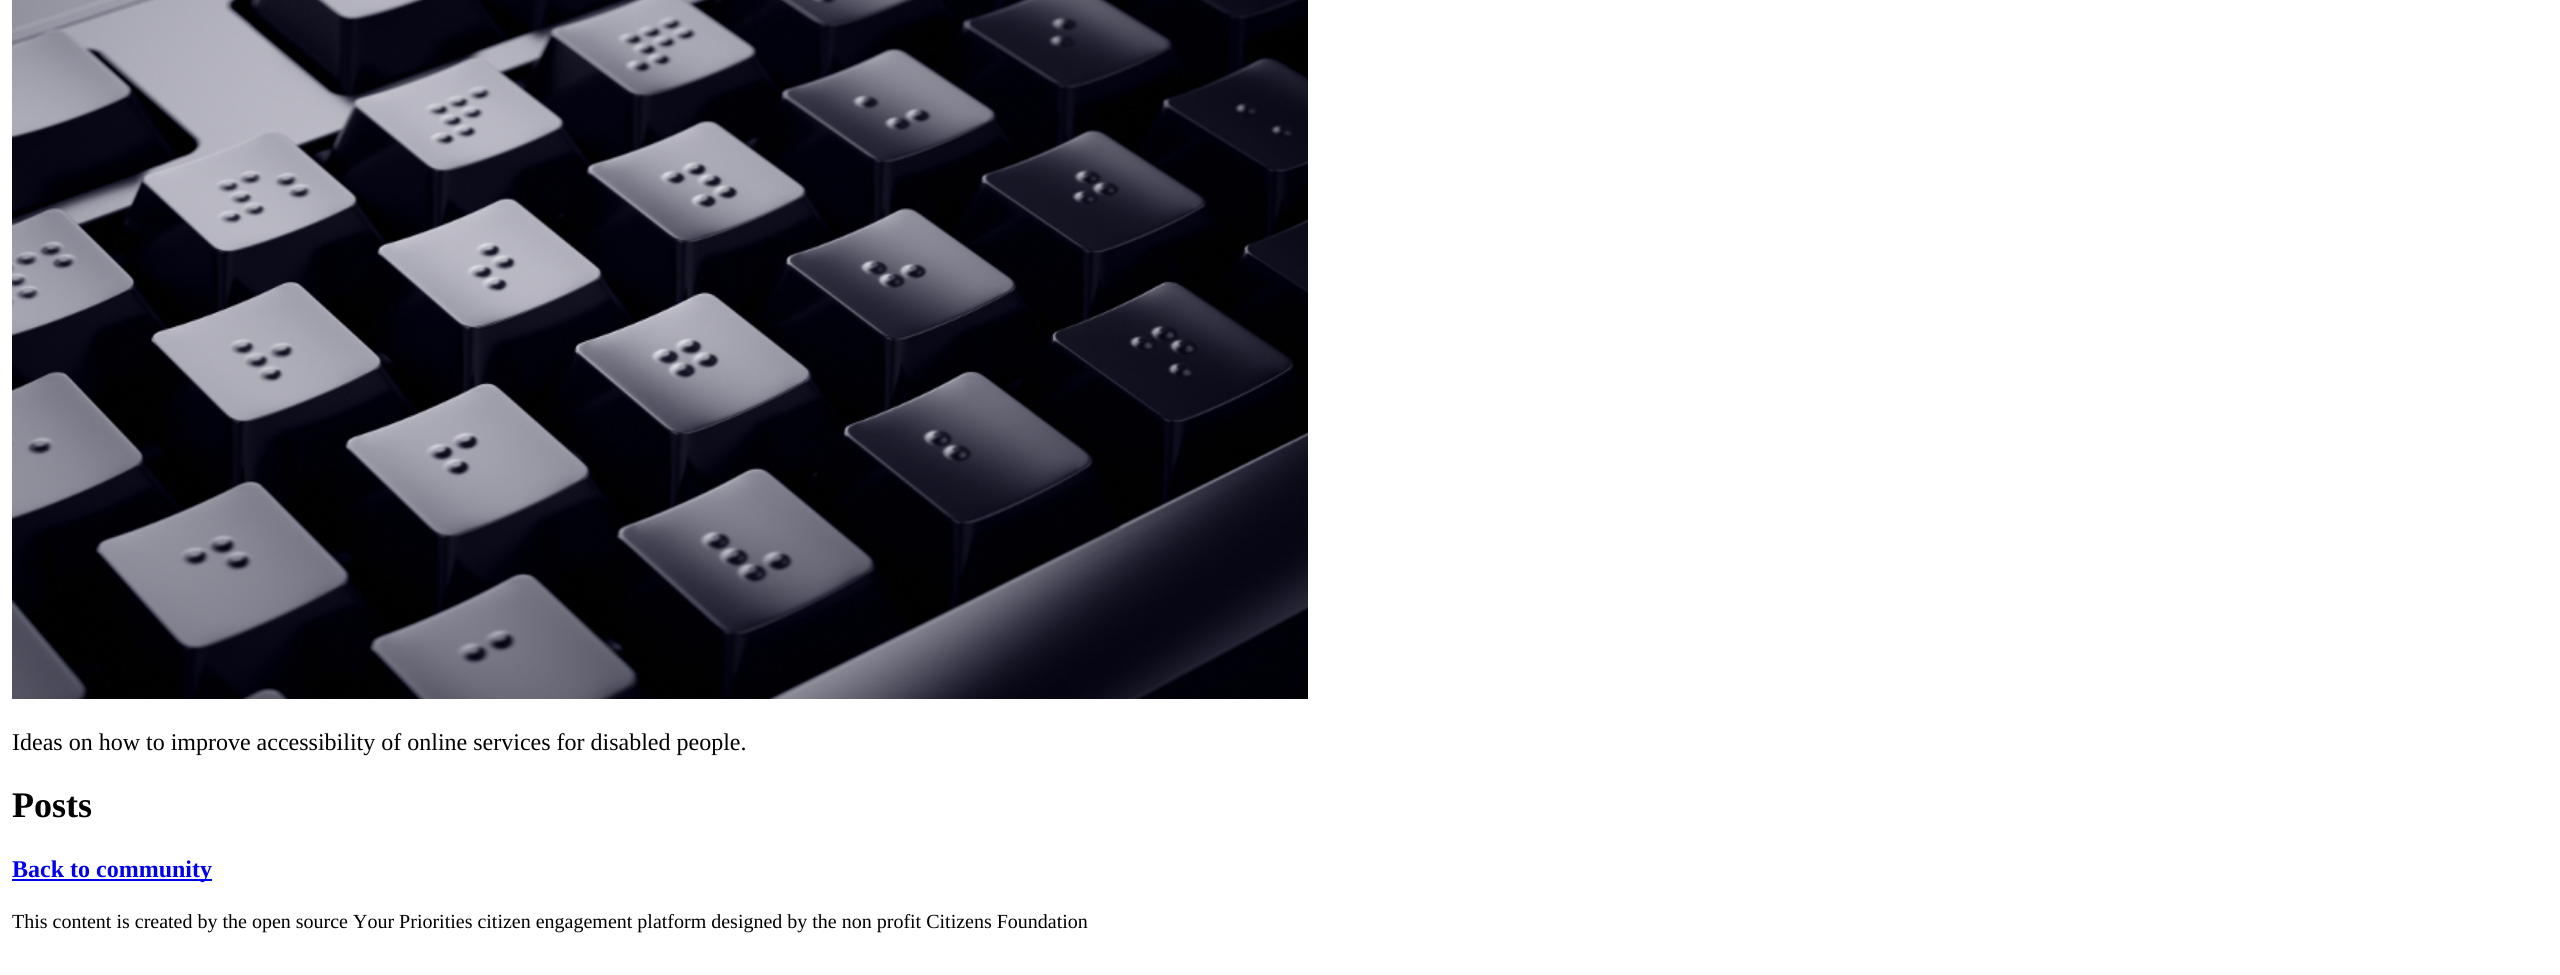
#include <cairo.h>
#include <math.h>
#include <stddef.h>


static void rgb(cairo_t *cr, int r, int g, int b)
{
	cairo_set_source_rgb(cr, r / 255.0, g / 255.0, b / 255.0);
}

static void face(cairo_t *cr, const char *family, double size, int italic, int bold)
{
	cairo_select_font_face(cr, family, italic ? CAIRO_FONT_SLANT_ITALIC : CAIRO_FONT_SLANT_NORMAL,
		bold ? CAIRO_FONT_WEIGHT_BOLD : CAIRO_FONT_WEIGHT_NORMAL);
	cairo_set_font_size(cr, size);
}

static void label(cairo_t *cr, double x, double y, const char *s)
{
	cairo_move_to(cr, x, y);
	cairo_show_text(cr, s);
}

static void rect(cairo_t *cr, double x, double y, double w, double h)
{
	cairo_rectangle(cr, x, y, w, h);
	cairo_fill(cr);
}

static void image(cairo_t *cr, const char *path, double x, double y, double w, double h)
{
	cairo_surface_t *image = cairo_image_surface_create_from_png(path);
	cairo_save(cr);
	cairo_set_source_surface(cr, image, x, y);
	cairo_rectangle(cr, x, y, w, h);
	cairo_fill(cr);
	cairo_restore(cr);
	cairo_surface_destroy(image);
}

static void draw(cairo_t *cr) {
	rgb(cr, 255, 255, 255);
	cairo_paint(cr);
	image(cr, "image0.png", 12, 0, 1296, 699);
	face(cr, "Liberation Serif", 24, 0, 0);
	rgb(cr, 0, 0, 0);
	label(cr, 12, 750, "Ideas on how to improve accessibility of online services for disabled people.");
	face(cr, "Liberation Serif", 36, 0, 1);
	label(cr, 12, 817, "Posts");
	rgb(cr, 0, 0, 238);
	rect(cr, 12, 879, 200, 2);
	face(cr, "Liberation Serif", 24, 0, 1);
	label(cr, 12, 877, "Back to community");
	face(cr, "Liberation Serif", 20, 0, 0);
	rgb(cr, 0, 0, 0);
	label(cr, 12, 928, "This content is created by the open source Your Priorities citizen engagement platform designed by the non profit Citizens Foundation");
}

int main(void) {
	cairo_surface_t *surface = cairo_image_surface_create(CAIRO_FORMAT_RGB24, 2560, 975);
	cairo_t *cr = cairo_create(surface);
	cairo_font_options_t *options = cairo_font_options_create();
	cairo_font_options_set_hint_metrics(options, CAIRO_HINT_METRICS_OFF);
	cairo_font_options_set_hint_style(options, CAIRO_HINT_STYLE_NONE);
	cairo_set_font_options(cr, options);
	cairo_set_miter_limit(cr, 4);
	draw(cr);
	cairo_surface_write_to_png(surface, "render.png");
	cairo_font_options_destroy(options);
	cairo_destroy(cr);
	cairo_surface_destroy(surface);
	return 0;
}
